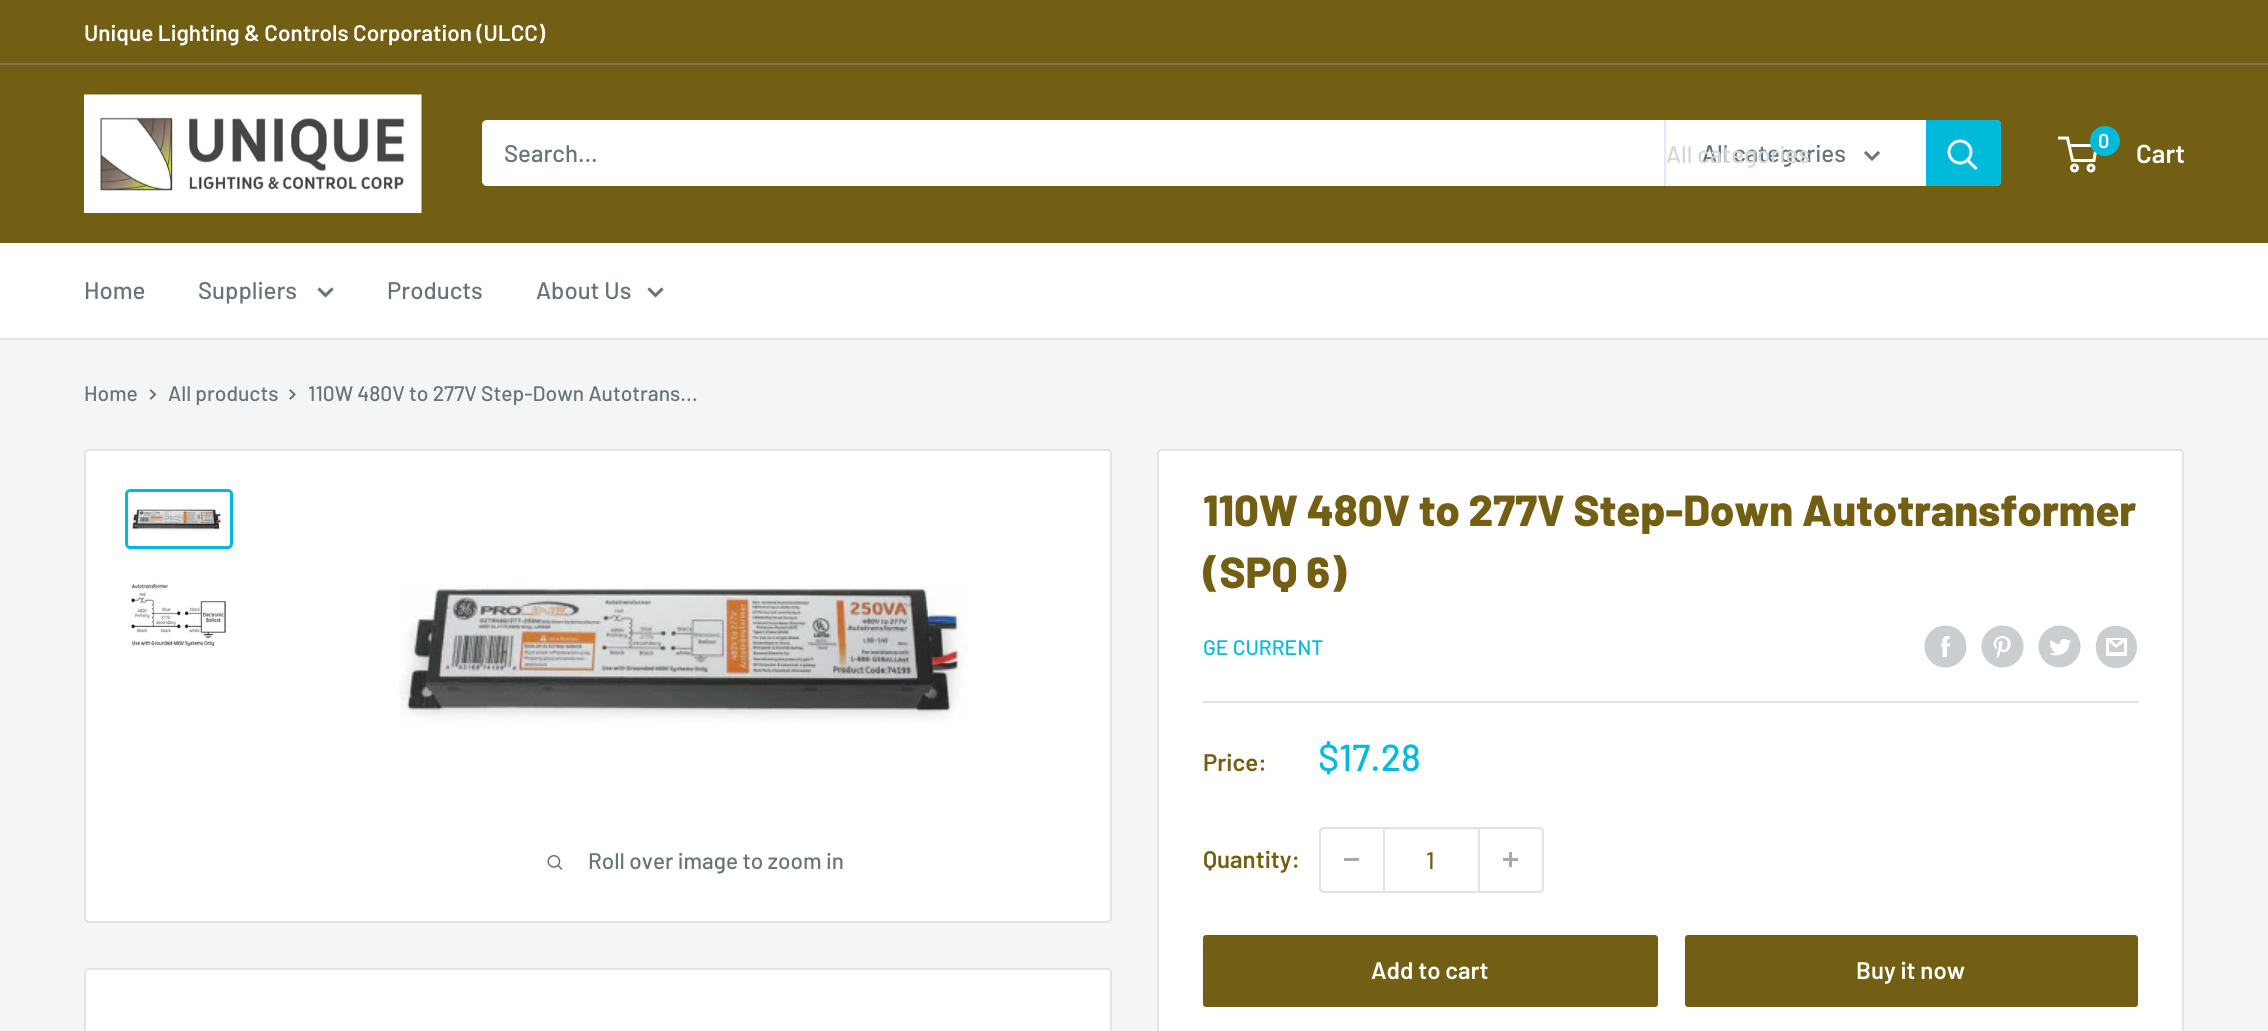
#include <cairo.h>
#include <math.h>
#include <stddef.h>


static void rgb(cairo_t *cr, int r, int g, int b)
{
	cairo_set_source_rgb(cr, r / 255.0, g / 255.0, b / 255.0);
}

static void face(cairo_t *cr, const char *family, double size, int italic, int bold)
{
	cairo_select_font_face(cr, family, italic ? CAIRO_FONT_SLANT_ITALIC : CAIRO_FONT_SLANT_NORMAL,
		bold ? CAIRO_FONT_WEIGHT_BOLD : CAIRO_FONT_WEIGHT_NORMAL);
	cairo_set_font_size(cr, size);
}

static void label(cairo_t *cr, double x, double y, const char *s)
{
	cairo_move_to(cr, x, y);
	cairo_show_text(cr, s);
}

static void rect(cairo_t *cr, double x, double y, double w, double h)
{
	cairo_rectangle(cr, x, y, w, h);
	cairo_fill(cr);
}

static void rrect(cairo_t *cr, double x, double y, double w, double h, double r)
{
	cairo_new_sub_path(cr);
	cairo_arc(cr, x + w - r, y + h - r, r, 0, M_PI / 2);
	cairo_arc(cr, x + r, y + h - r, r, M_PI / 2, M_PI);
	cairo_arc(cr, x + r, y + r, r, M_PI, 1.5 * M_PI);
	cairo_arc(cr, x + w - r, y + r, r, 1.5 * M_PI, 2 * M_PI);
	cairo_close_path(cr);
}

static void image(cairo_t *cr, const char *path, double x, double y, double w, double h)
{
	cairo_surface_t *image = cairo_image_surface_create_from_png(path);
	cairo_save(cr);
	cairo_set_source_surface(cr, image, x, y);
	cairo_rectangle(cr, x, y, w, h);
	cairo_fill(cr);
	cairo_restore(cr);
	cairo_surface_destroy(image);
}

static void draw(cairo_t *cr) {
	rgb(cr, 243, 245, 246);
	cairo_paint(cr);
	rgb(cr, 115, 95, 19);
	rect(cr, 0, 0, 2268, 63);
	rgb(cr, 129, 119, 85);
	rect(cr, 0, 63, 2268, 2);
	face(cr, "Barlow SemiBold", 22.5, 0, 0);
	rgb(cr, 255, 255, 255);
	label(cr, 84, 41, "Unique Lighting & Controls Corporation (ULCC)");
	rgb(cr, 115, 95, 19);
	rect(cr, 0, 65, 2268, 178);
	image(cr, "image0.png", 84, 94, 338, 119);
	rgb(cr, 255, 255, 255);
	rrect(cr, 482, 120, 1519, 66, 5);
	cairo_fill(cr);
	face(cr, "Barlow Medium", 24, 0, 0);
	rgb(cr, 103, 114, 121);
	label(cr, 504, 162, "Search...");
	rgb(cr, 227, 231, 250);
	rect(cr, 1664, 120, 2, 66);
	rgb(cr, 103, 114, 121);
	label(cr, 1702, 162, "All categories");
	cairo_new_path(cr);
	cairo_move_to(cr, 1878, 153);
	cairo_line_to(cr, 1872, 159);
	cairo_line_to(cr, 1866, 153);
	cairo_set_line_width(cr, 3);
	cairo_set_line_cap(cr, CAIRO_LINE_CAP_SQUARE);
	cairo_stroke(cr);
	rgb(cr, 212, 215, 217);
	label(cr, 1666, 163, "All categories");
	rgb(cr, 0, 186, 219);
	cairo_new_path(cr);
	cairo_move_to(cr, 1926, 120);
	cairo_line_to(cr, 1996, 120);
	cairo_curve_to(cr, 1999, 120, 2001, 122, 2001, 125);
	cairo_line_to(cr, 2001, 181);
	cairo_curve_to(cr, 2001, 184, 1999, 186, 1996, 186);
	cairo_line_to(cr, 1926, 186);
	cairo_close_path(cr);
	cairo_fill(cr);
	cairo_new_path(cr);
	cairo_move_to(cr, 1975.5, 168);
	cairo_line_to(cr, 1968, 160.5);
	rgb(cr, 255, 255, 255);
	cairo_stroke(cr);
	cairo_arc(cr, 1960, 152, 11, 0, 2 * M_PI);
	cairo_set_line_cap(cr, CAIRO_LINE_CAP_BUTT);
	cairo_stroke(cr);
	cairo_arc(cr, 2074.5, 168, 3, 0, 2 * M_PI);
	cairo_stroke(cr);
	cairo_arc(cr, 2091, 168, 3, 0, 2 * M_PI);
	cairo_stroke(cr);
	cairo_new_path(cr);
	cairo_move_to(cr, 2069, 145.5);
	cairo_line_to(cr, 2096.5, 145.5);
	cairo_line_to(cr, 2094, 160.5);
	cairo_line_to(cr, 2072.5, 160.5);
	cairo_line_to(cr, 2067.5, 138);
	cairo_line_to(cr, 2058, 138);
	cairo_stroke(cr);
	rgb(cr, 0, 186, 219);
	cairo_arc(cr, 2105, 141, 15, 0, 2 * M_PI);
	cairo_fill(cr);
	face(cr, "Barlow SemiBold", 20, 0, 0);
	rgb(cr, 255, 255, 255);
	label(cr, 2098, 148, "0");
	face(cr, "Barlow SemiBold", 26, 0, 0);
	label(cr, 2136, 163, "Cart");
	rect(cr, 0, 243, 2268, 95);
	rgb(cr, 225, 227, 228);
	rect(cr, 0, 338, 2268, 2);
	face(cr, "Barlow Medium", 24, 0, 0);
	rgb(cr, 103, 114, 121);
	label(cr, 84, 299, "Home");
	label(cr, 198, 299, "Suppliers");
	cairo_new_path(cr);
	cairo_move_to(cr, 331.5, 289.5);
	cairo_line_to(cr, 325.5, 295.5);
	cairo_line_to(cr, 319.5, 289.5);
	cairo_set_line_cap(cr, CAIRO_LINE_CAP_SQUARE);
	cairo_stroke(cr);
	label(cr, 387, 299, "Products");
	label(cr, 536, 299, "About Us");
	cairo_new_path(cr);
	cairo_move_to(cr, 661.5, 289.5);
	cairo_line_to(cr, 655.5, 295.5);
	cairo_line_to(cr, 649.5, 289.5);
	cairo_stroke(cr);
	face(cr, "Barlow Medium", 21, 0, 0);
	label(cr, 84, 401, "Home");
	cairo_new_path(cr);
	cairo_move_to(cr, 151, 390.5);
	cairo_line_to(cr, 155, 394.5);
	cairo_line_to(cr, 151, 398.5);
	cairo_set_line_width(cr, 2);
	cairo_stroke(cr);
	label(cr, 168, 401, "All products");
	cairo_new_path(cr);
	cairo_move_to(cr, 290.5, 390.5);
	cairo_line_to(cr, 294.5, 394.5);
	cairo_line_to(cr, 290.5, 398.5);
	cairo_stroke(cr);
	label(cr, 308, 401, "110W 480V to 277V Step-Down Autotrans...");
	rgb(cr, 255, 255, 255);
	rrect(cr, 85, 450, 1026, 472, 4);
	cairo_fill_preserve(cr);
	rgb(cr, 225, 227, 228);
	cairo_set_line_cap(cr, CAIRO_LINE_CAP_BUTT);
	cairo_stroke(cr);
	rrect(cr, 126.5, 490.5, 105, 57, 3.5);
	rgb(cr, 0, 186, 219);
	cairo_set_line_width(cr, 3);
	cairo_stroke(cr);
	image(cr, "image1.png", 130, 509, 95, 22);
	image(cr, "image2.png", 131, 583, 95, 64);
	image(cr, "image3.png", 399, 585, 569, 138);
	image(cr, "image4.png", 547, 855, 16, 15);
	face(cr, "Barlow Medium", 22.5, 0, 0);
	rgb(cr, 103, 114, 121);
	label(cr, 588, 869, "Roll over image to zoom in");
	rgb(cr, 255, 255, 255);
	rrect(cr, 1158, 450, 1025, 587, 4);
	cairo_fill_preserve(cr);
	rgb(cr, 225, 227, 228);
	cairo_set_line_width(cr, 2);
	cairo_stroke(cr);
	face(cr, "Barlow ExtraBold", 43.5, 0, 0);
	rgb(cr, 115, 95, 19);
	label(cr, 1203, 526, "110W 480V to 277V Step-Down Autotransformer");
	label(cr, 1203, 588, "(SPQ 6)");
	face(cr, "Barlow Medium", 21, 0, 0);
	rgb(cr, 0, 186, 219);
	label(cr, 1203, 655, "GE CURRENT");
	image(cr, "image5.png", 1924, 625, 43, 43);
	image(cr, "image6.png", 1981, 625, 43, 43);
	image(cr, "image7.png", 2038, 625, 43, 43);
	rgb(cr, 202, 206, 208);
	cairo_new_path(cr);
	cairo_move_to(cr, 2116, 668);
	cairo_curve_to(cr, 2089, 668, 2089, 625, 2116, 626);
	cairo_curve_to(cr, 2144, 626, 2144, 668, 2116, 668);
	cairo_close_path(cr);
	cairo_move_to(cr, 2112, 640);
	cairo_line_to(cr, 2121, 640);
	cairo_line_to(cr, 2116, 645);
	cairo_close_path(cr);
	cairo_move_to(cr, 2124, 642);
	cairo_line_to(cr, 2124, 652);
	cairo_line_to(cr, 2109, 652);
	cairo_line_to(cr, 2109, 642);
	cairo_line_to(cr, 2116, 648);
	cairo_close_path(cr);
	cairo_move_to(cr, 2127, 638);
	cairo_line_to(cr, 2106, 638);
	cairo_line_to(cr, 2106, 656);
	cairo_line_to(cr, 2127, 656);
	cairo_close_path(cr);
	cairo_fill(cr);
	rgb(cr, 225, 227, 228);
	rect(cr, 1203, 701, 935, 2);
	face(cr, "Barlow SemiBold", 24, 0, 0);
	rgb(cr, 115, 95, 19);
	label(cr, 1203, 771, "Price:");
	face(cr, "Barlow Medium", 37.5, 0, 0);
	rgb(cr, 0, 186, 219);
	label(cr, 1318, 771, "$17.28");
	face(cr, "Barlow SemiBold", 24, 0, 0);
	rgb(cr, 115, 95, 19);
	label(cr, 1203, 868, "Quantity:");
	rrect(cr, 1320, 828, 223, 64, 4);
	rgb(cr, 225, 227, 228);
	cairo_stroke(cr);
	rgb(cr, 164, 170, 175);
	rect(cr, 1344, 858, 15, 3);
	cairo_set_source_rgba(cr, 0.882, 0.89, 0.894, 0.4);
	rect(cr, 1385, 829, 93, 1);
	rgb(cr, 225, 227, 228);
	rect(cr, 1478, 828, 2, 63);
	rect(cr, 1383, 828, 2, 63);
	face(cr, "Barlow Medium", 24, 0, 0);
	rgb(cr, 115, 95, 19);
	label(cr, 1426, 869, "1");
	image(cr, "image8.png", 1503, 852, 15, 15);
	rrect(cr, 1203, 935, 455, 72, 3);
	cairo_fill(cr);
	face(cr, "Barlow SemiBold", 24, 0, 0);
	rgb(cr, 255, 255, 255);
	label(cr, 1371, 979, "Add to cart");
	rgb(cr, 115, 95, 19);
	rrect(cr, 1685, 935, 453, 72, 3);
	cairo_fill(cr);
	rgb(cr, 255, 255, 255);
	label(cr, 1856, 979, "Buy it now");
	rrect(cr, 85, 969, 1026, 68, 4);
	cairo_fill_preserve(cr);
	rgb(cr, 225, 227, 228);
	cairo_stroke(cr);
}

int main(void) {
	cairo_surface_t *surface = cairo_image_surface_create(CAIRO_FORMAT_RGB24, 2268, 1031);
	cairo_t *cr = cairo_create(surface);
	cairo_font_options_t *options = cairo_font_options_create();
	cairo_font_options_set_hint_metrics(options, CAIRO_HINT_METRICS_OFF);
	cairo_font_options_set_hint_style(options, CAIRO_HINT_STYLE_NONE);
	cairo_set_font_options(cr, options);
	cairo_set_miter_limit(cr, 4);
	draw(cr);
	cairo_surface_write_to_png(surface, "render.png");
	cairo_font_options_destroy(options);
	cairo_destroy(cr);
	cairo_surface_destroy(surface);
	return 0;
}
